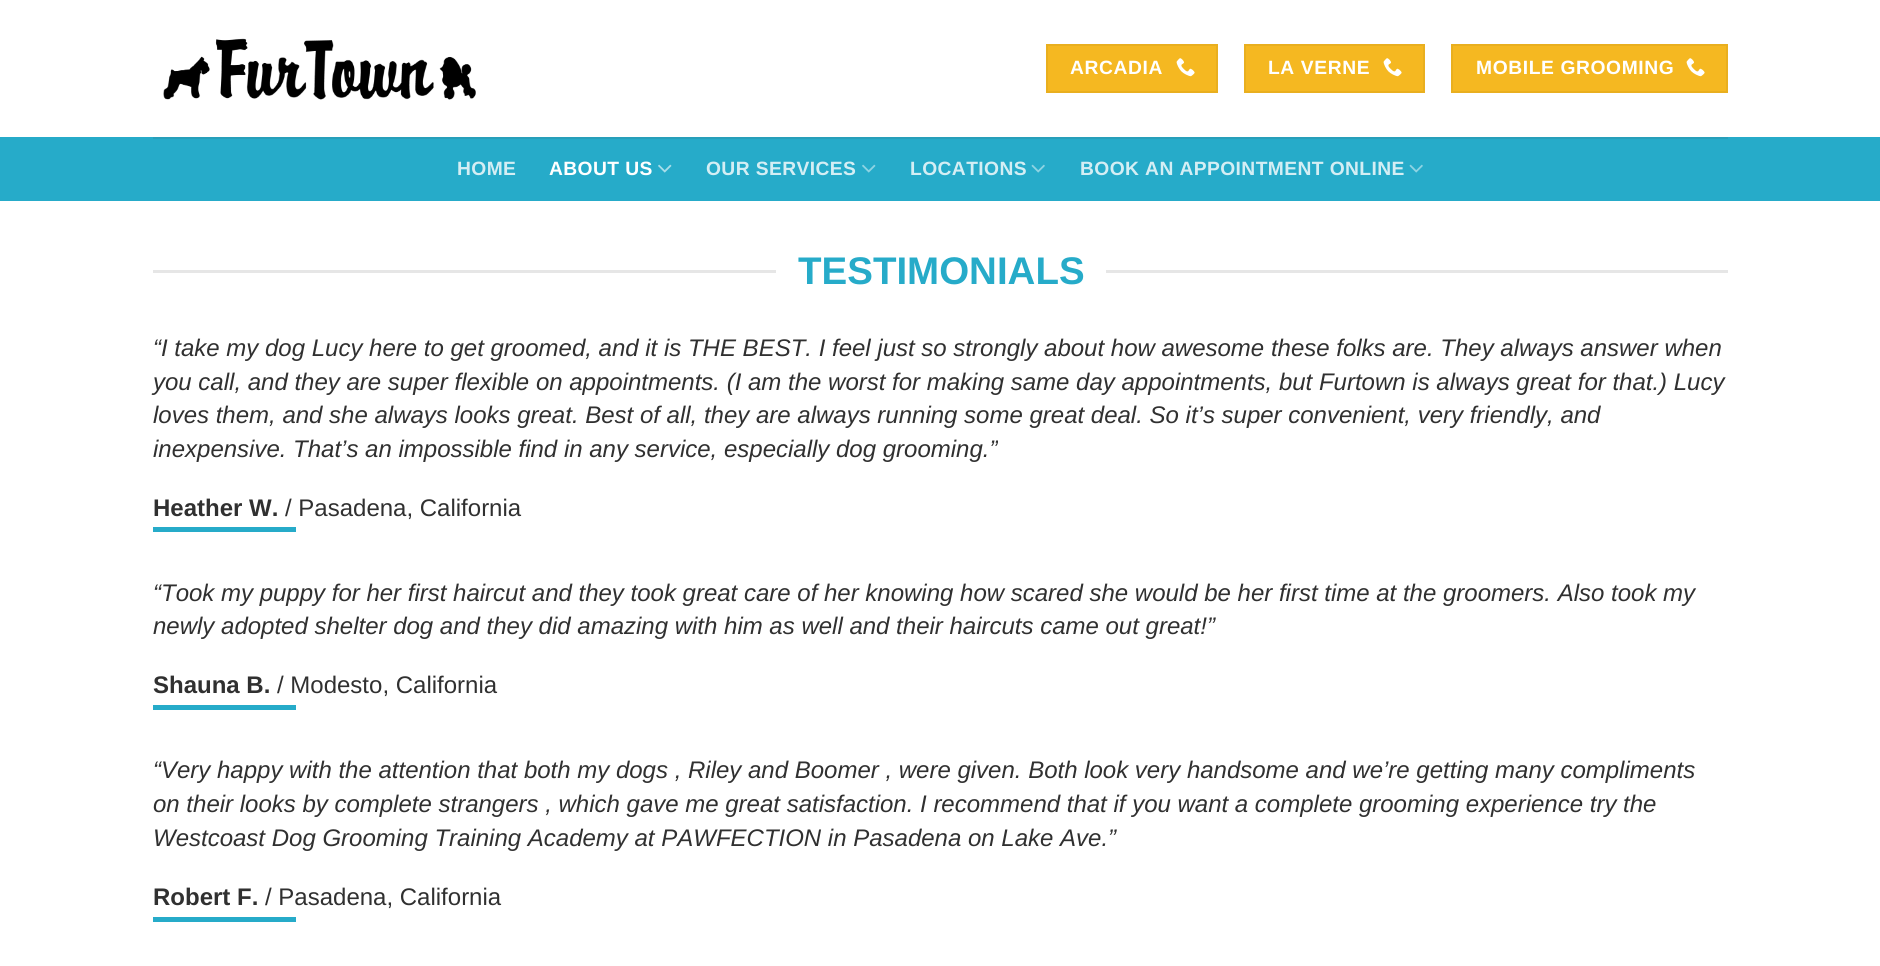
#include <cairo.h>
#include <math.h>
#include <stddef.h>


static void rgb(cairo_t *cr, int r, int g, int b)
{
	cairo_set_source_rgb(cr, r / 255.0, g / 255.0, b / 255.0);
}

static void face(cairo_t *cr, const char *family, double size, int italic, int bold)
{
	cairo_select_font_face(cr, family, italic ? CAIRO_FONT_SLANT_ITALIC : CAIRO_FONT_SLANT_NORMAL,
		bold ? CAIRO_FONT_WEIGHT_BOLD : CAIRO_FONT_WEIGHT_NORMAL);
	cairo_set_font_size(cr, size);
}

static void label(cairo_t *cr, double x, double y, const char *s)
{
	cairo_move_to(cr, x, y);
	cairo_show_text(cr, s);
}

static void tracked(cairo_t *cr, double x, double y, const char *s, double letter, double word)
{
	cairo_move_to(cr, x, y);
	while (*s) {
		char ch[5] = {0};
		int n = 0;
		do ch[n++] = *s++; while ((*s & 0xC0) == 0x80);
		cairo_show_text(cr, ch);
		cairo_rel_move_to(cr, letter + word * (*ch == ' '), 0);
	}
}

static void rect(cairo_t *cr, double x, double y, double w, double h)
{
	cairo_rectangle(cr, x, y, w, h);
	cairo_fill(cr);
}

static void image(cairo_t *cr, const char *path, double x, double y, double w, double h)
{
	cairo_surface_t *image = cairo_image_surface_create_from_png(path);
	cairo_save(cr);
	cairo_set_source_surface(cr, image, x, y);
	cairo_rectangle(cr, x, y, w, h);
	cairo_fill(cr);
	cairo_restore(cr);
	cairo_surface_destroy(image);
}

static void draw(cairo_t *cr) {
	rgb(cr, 255, 255, 255);
	cairo_paint(cr);
	image(cr, "image0.png", 163, 38, 313, 62);
	rgb(cr, 245, 184, 33);
	cairo_rectangle(cr, 1047, 45, 170, 47);
	cairo_fill_preserve(cr);
	rgb(cr, 233, 175, 31);
	cairo_stroke(cr);
	face(cr, "Liberation Sans", 19.25, 0, 1);
	rgb(cr, 255, 255, 255);
	tracked(cr, 1070, 74, "ARCADIA", 0.6, 0);
	image(cr, "image1.png", 1176, 58, 19, 19);
	rgb(cr, 245, 184, 33);
	cairo_rectangle(cr, 1245, 45, 179, 47);
	cairo_fill_preserve(cr);
	rgb(cr, 233, 175, 31);
	cairo_stroke(cr);
	rgb(cr, 255, 255, 255);
	tracked(cr, 1268, 74, "LA VERNE", 0.6, 0);
	image(cr, "image1.png", 1383, 58, 19, 19);
	rgb(cr, 245, 184, 33);
	cairo_rectangle(cr, 1452, 45, 275, 47);
	cairo_fill_preserve(cr);
	rgb(cr, 233, 175, 31);
	cairo_stroke(cr);
	rgb(cr, 255, 255, 255);
	tracked(cr, 1476, 74, "MOBILE GROOMING", 0.6, 0);
	image(cr, "image1.png", 1686, 58, 19, 19);
	rgb(cr, 38, 171, 201);
	rect(cr, 0, 137, 1880, 64);
	rgb(cr, 39, 159, 186);
	rect(cr, 153, 137, 1575, 2);
	rgb(cr, 212, 238, 244);
	tracked(cr, 457, 175, "HOME", 0.4, 0);
	rgb(cr, 255, 255, 255);
	tracked(cr, 549, 175, "ABOUT US", 0.4, 0);
	image(cr, "image2.png", 658, 164, 14, 9);
	rgb(cr, 212, 238, 244);
	tracked(cr, 706, 175, "OUR SERVICES", 0.4, 0);
	image(cr, "image3.png", 862, 164, 14, 9);
	tracked(cr, 910, 175, "LOCATIONS", 0.4, 0);
	image(cr, "image4.png", 1031, 164, 14, 9);
	tracked(cr, 1080, 175, "BOOK AN APPOINTMENT ONLINE", 0.4, 0);
	image(cr, "image4.png", 1409, 164, 14, 9);
	rgb(cr, 230, 230, 230);
	rect(cr, 153, 270, 623, 3);
	face(cr, "Liberation Sans", 38.5, 0, 1);
	rgb(cr, 38, 171, 201);
	label(cr, 798, 284, "TESTIMONIALS");
	rgb(cr, 230, 230, 230);
	rect(cr, 1106, 270, 622, 3);
	face(cr, "Liberation Sans", 24, 1, 0);
	rgb(cr, 48, 48, 48);
	label(cr, 153, 356, "“I take my dog Lucy here to get groomed, and it is THE BEST. I feel just so strongly about how awesome these folks are. They always answer when");
	label(cr, 153, 390, "you call, and they are super flexible on appointments. (I am the worst for making same day appointments, but Furtown is always great for that.) Lucy");
	label(cr, 153, 423, "loves them, and she always looks great. Best of all, they are always running some great deal. So it’s super convenient, very friendly, and");
	label(cr, 153, 457, "inexpensive. That’s an impossible find in any service, especially dog grooming.”");
	face(cr, "Liberation Sans", 24, 0, 1);
	label(cr, 153, 516, "Heather W.");
	face(cr, "Liberation Sans", 24, 0, 0);
	label(cr, 285, 516, "/ Pasadena, California");
	rgb(cr, 38, 171, 201);
	rect(cr, 153, 527, 143, 5);
	face(cr, "Liberation Sans", 24, 1, 0);
	rgb(cr, 48, 48, 48);
	label(cr, 153, 601, "“Took my puppy for her first haircut and they took great care of her knowing how scared she would be her first time at the groomers. Also took my");
	label(cr, 153, 634, "newly adopted shelter dog and they did amazing with him as well and their haircuts came out great!”");
	face(cr, "Liberation Sans", 24, 0, 1);
	label(cr, 153, 693, "Shauna B.");
	face(cr, "Liberation Sans", 24, 0, 0);
	label(cr, 277, 693, "/ Modesto, California");
	rgb(cr, 38, 171, 201);
	rect(cr, 153, 705, 143, 5);
	face(cr, "Liberation Sans", 24, 1, 0);
	rgb(cr, 48, 48, 48);
	label(cr, 153, 778, "“Very happy with the attention that both my dogs , Riley and Boomer , were given. Both look very handsome and we’re getting many compliments");
	label(cr, 153, 812, "on their looks by complete strangers , which gave me great satisfaction. I recommend that if you want a complete grooming experience try the");
	label(cr, 153, 846, "Westcoast Dog Grooming Training Academy at PAWFECTION in Pasadena on Lake Ave.”");
	face(cr, "Liberation Sans", 24, 0, 1);
	label(cr, 153, 905, "Robert F.");
	face(cr, "Liberation Sans", 24, 0, 0);
	label(cr, 265, 905, "/ Pasadena, California");
	rgb(cr, 38, 171, 201);
	rect(cr, 153, 917, 143, 5);
}

int main(void) {
	cairo_surface_t *surface = cairo_image_surface_create(CAIRO_FORMAT_RGB24, 1880, 966);
	cairo_t *cr = cairo_create(surface);
	cairo_font_options_t *options = cairo_font_options_create();
	cairo_font_options_set_hint_metrics(options, CAIRO_HINT_METRICS_OFF);
	cairo_font_options_set_hint_style(options, CAIRO_HINT_STYLE_NONE);
	cairo_set_font_options(cr, options);
	cairo_set_miter_limit(cr, 4);
	draw(cr);
	cairo_surface_write_to_png(surface, "render.png");
	cairo_font_options_destroy(options);
	cairo_destroy(cr);
	cairo_surface_destroy(surface);
	return 0;
}
